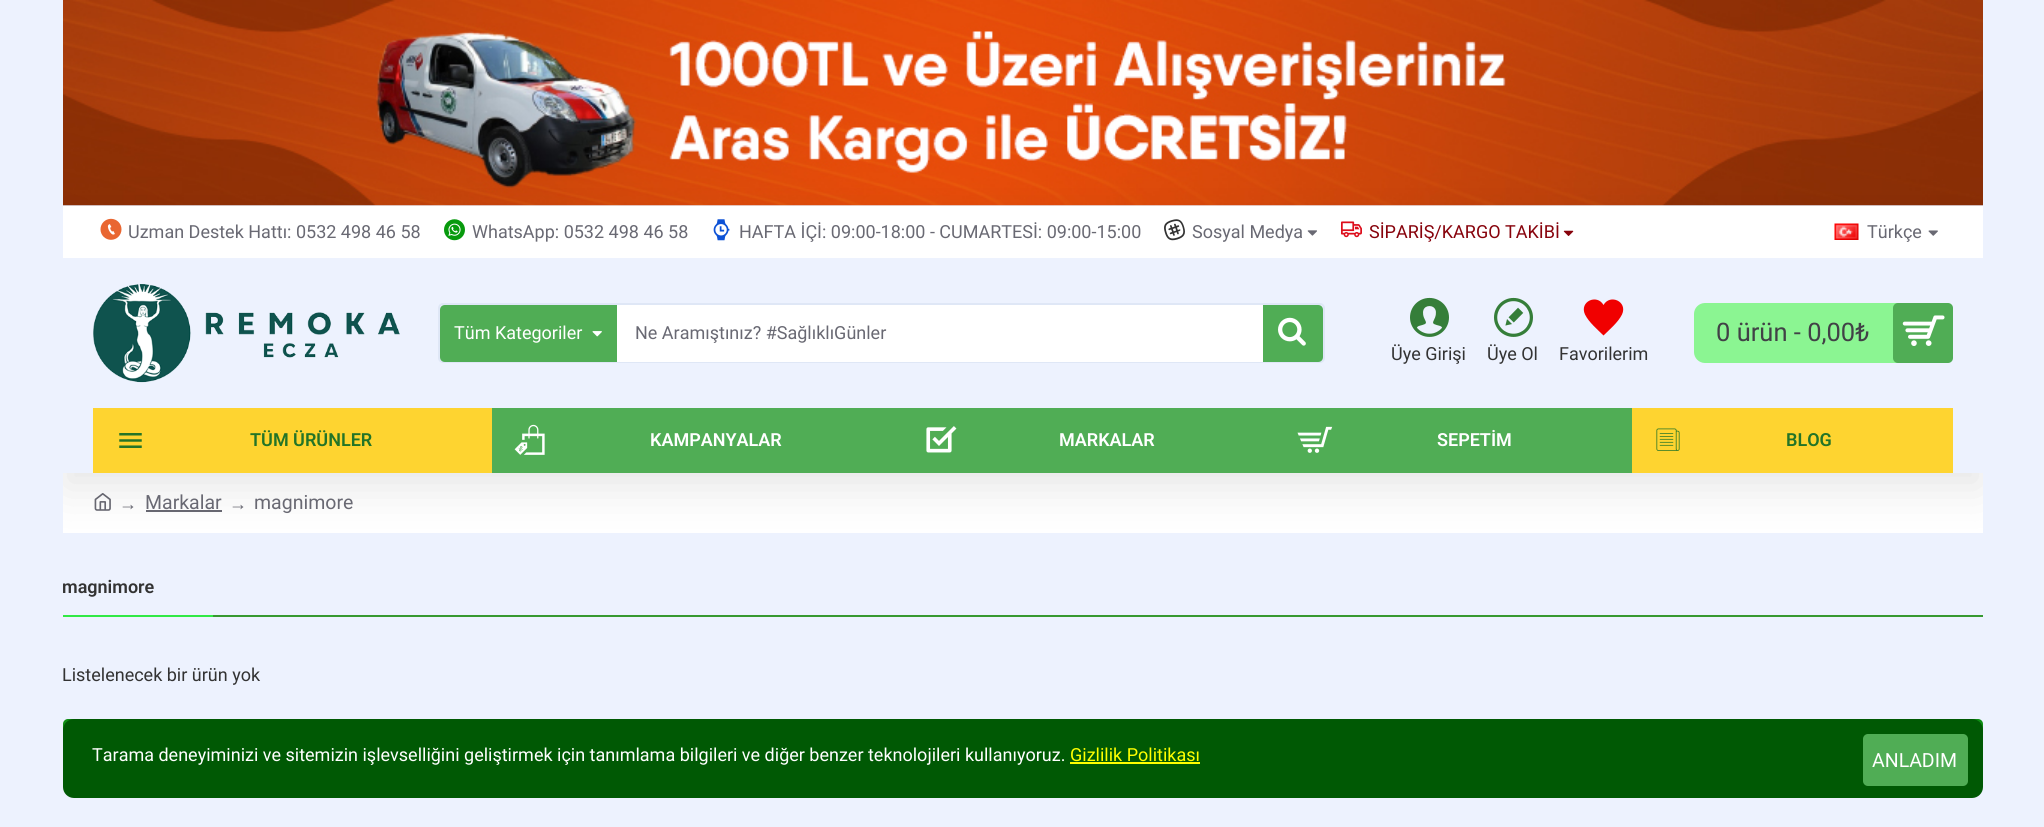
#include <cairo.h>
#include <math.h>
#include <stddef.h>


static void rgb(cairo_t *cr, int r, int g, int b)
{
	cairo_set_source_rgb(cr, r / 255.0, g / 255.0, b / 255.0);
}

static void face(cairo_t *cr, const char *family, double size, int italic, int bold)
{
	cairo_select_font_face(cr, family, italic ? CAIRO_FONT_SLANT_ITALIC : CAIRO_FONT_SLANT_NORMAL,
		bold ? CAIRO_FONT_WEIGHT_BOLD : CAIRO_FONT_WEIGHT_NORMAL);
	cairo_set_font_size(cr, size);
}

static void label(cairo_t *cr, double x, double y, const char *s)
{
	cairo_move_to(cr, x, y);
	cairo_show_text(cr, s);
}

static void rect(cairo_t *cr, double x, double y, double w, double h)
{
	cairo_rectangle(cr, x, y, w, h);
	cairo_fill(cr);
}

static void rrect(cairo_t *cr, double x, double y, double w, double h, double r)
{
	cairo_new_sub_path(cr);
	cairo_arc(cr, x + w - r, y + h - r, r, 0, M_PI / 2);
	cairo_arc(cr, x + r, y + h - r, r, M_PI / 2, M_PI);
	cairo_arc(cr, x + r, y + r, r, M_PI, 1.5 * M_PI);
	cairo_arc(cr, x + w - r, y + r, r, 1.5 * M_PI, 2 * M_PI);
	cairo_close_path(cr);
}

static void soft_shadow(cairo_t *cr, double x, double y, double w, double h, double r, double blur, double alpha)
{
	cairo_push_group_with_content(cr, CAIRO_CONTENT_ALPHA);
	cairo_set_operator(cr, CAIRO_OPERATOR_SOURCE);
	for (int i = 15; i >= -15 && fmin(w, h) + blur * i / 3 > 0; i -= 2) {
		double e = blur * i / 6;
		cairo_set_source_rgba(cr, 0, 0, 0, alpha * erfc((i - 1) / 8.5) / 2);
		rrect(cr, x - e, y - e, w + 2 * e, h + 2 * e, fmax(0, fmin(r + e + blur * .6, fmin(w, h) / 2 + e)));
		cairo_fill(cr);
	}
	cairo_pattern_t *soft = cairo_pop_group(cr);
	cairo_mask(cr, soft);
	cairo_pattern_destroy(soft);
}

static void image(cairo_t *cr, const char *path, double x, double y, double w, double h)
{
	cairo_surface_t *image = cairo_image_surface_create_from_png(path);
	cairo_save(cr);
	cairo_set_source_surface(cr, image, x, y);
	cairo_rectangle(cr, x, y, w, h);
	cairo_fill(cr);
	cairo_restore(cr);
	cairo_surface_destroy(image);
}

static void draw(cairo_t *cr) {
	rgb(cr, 237, 242, 254);
	cairo_paint(cr);
	image(cr, "image0.png", 63, 0, 1920, 206);
	rgb(cr, 255, 255, 255);
	rect(cr, 63, 473, 1920, 60);
	image(cr, "image21.png", 94, 493, 17, 18);
	rgb(cr, 105, 105, 115);
	rect(cr, 146, 510, 76, 2);
	cairo_save(cr);
	cairo_rectangle(cr, 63, 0, 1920, 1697);
	cairo_clip(cr);
	cairo_set_fill_rule(cr, CAIRO_FILL_RULE_EVEN_ODD);
	cairo_new_path(cr);
	cairo_move_to(cr, 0, 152);
	cairo_line_to(cr, 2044, 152);
	cairo_line_to(cr, 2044, 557);
	cairo_line_to(cr, 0, 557);
	cairo_close_path(cr);
	cairo_move_to(cr, 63, 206);
	cairo_line_to(cr, 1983, 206);
	cairo_line_to(cr, 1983, 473);
	cairo_line_to(cr, 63, 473);
	cairo_close_path(cr);
	cairo_clip(cr);
	rgb(cr, 0, 0, 0);
	soft_shadow(cr, 63, 221, 1920, 267, 0, 22.5, 0.1);
	cairo_restore(cr);
	rgb(cr, 255, 255, 255);
	rect(cr, 63, 206, 1920, 52);
	image(cr, "image1.png", 100, 218, 22, 22);
	face(cr, "Roboto", 18, 0, 0);
	rgb(cr, 105, 105, 115);
	label(cr, 128, 238, "Uzman Destek Hattı: 0532 498 46 58");
	image(cr, "image2.png", 444, 219, 21, 22);
	label(cr, 472, 238, "WhatsApp: 0532 498 46 58");
	image(cr, "image3.png", 713, 219, 17, 22);
	label(cr, 739, 238, "HAFTA İÇİ: 09:00-18:00 - CUMARTESİ: 09:00-15:00");
	image(cr, "image4.png", 1164, 219, 21, 22);
	label(cr, 1192, 238, "Sosyal Medya");
	image(cr, "image5.png", 1307, 230, 10, 6);
	image(cr, "image6.png", 1341, 221, 21, 17);
	rgb(cr, 135, 3, 12);
	label(cr, 1369, 238, "SİPARİŞ/KARGO TAKİBİ");
	image(cr, "image7.png", 1563, 230, 11, 6);
	image(cr, "image8.png", 1834, 223, 25, 17);
	rgb(cr, 105, 105, 115);
	label(cr, 1867, 238, "Türkçe");
	image(cr, "image9.png", 1928, 230, 10, 6);
	image(cr, "image10.png", 93, 284, 307, 99);
	rrect(cr, 439, 304, 885, 58, 4);
	rgb(cr, 223, 231, 246);
	cairo_stroke(cr);
	rgb(cr, 80, 173, 85);
	cairo_new_path(cr);
	cairo_move_to(cr, 445, 305);
	cairo_line_to(cr, 617, 305);
	cairo_line_to(cr, 617, 362);
	cairo_line_to(cr, 445, 362);
	cairo_curve_to(cr, 442, 362, 440, 360, 440, 357);
	cairo_line_to(cr, 440, 310);
	cairo_curve_to(cr, 440, 307, 442, 305, 445, 305);
	cairo_close_path(cr);
	cairo_fill(cr);
	rgb(cr, 255, 255, 255);
	label(cr, 454, 339, "Tüm Kategoriler");
	image(cr, "image11.png", 592, 331, 10, 6);
	rect(cr, 617, 305, 646, 57);
	rgb(cr, 105, 105, 115);
	label(cr, 635, 339, "Ne Aramıştınız? #SağlıklıGünler");
	rgb(cr, 80, 173, 85);
	cairo_new_path(cr);
	cairo_move_to(cr, 1263, 305);
	cairo_line_to(cr, 1318, 305);
	cairo_curve_to(cr, 1321, 305, 1323, 307, 1323, 310);
	cairo_line_to(cr, 1323, 357);
	cairo_curve_to(cr, 1323, 360, 1321, 362, 1318, 362);
	cairo_line_to(cr, 1263, 362);
	cairo_close_path(cr);
	cairo_fill(cr);
	image(cr, "image12.png", 1278, 317, 28, 29);
	rgb(cr, 139, 245, 146);
	rrect(cr, 1694, 303, 259, 60, 11);
	cairo_fill(cr);
	face(cr, "Roboto", 25.5, 0, 0);
	rgb(cr, 65, 65, 70);
	label(cr, 1716, 341, "0 ürün - 0,00₺");
	rgb(cr, 80, 173, 85);
	rrect(cr, 1893, 303, 60, 60, 5);
	cairo_fill(cr);
	image(cr, "image13.png", 1902, 315, 43, 31);
	image(cr, "image14.png", 1410, 297, 39, 40);
	face(cr, "Roboto", 18, 0, 0);
	rgb(cr, 51, 51, 51);
	label(cr, 1391, 360, "Üye Girişi");
	image(cr, "image15.png", 1494, 297, 39, 40);
	label(cr, 1487, 360, "Üye Ol");
	rgb(cr, 241, 0, 0);
	cairo_new_path(cr);
	cairo_move_to(cr, 1603.5, 305);
	cairo_curve_to(cr, 1597, 293.5, 1579, 301.5, 1585, 314.5);
	cairo_curve_to(cr, 1589, 322.5, 1597.5, 329.5, 1603.5, 335.5);
	cairo_curve_to(cr, 1609.5, 329.5, 1618, 322.5, 1622, 314.5);
	cairo_curve_to(cr, 1628, 301.5, 1610, 293.5, 1603.5, 305);
	cairo_close_path(cr);
	cairo_fill(cr);
	rgb(cr, 51, 51, 51);
	label(cr, 1559, 360, "Favorilerim");
	rgb(cr, 254, 212, 48);
	rect(cr, 93, 408, 399, 65);
	image(cr, "image16.png", 119, 433, 23, 15);
	face(cr, "Roboto SemiBold", 18, 0, 0);
	rgb(cr, 35, 116, 39);
	label(cr, 250, 446, "TÜM ÜRÜNLER");
	rgb(cr, 80, 173, 85);
	rect(cr, 492, 408, 1140, 65);
	image(cr, "image17.png", 514, 424, 31, 31);
	rgb(cr, 255, 255, 255);
	label(cr, 650, 446, "KAMPANYALAR");
	image(cr, "image18.png", 926, 426, 31, 27);
	label(cr, 1059, 446, "MARKALAR");
	image(cr, "image19.png", 1297, 426, 36, 27);
	label(cr, 1437, 446, "SEPETİM");
	rgb(cr, 254, 212, 48);
	rect(cr, 1632, 408, 321, 65);
	image(cr, "image20.png", 1656, 428, 24, 23);
	rgb(cr, 35, 116, 39);
	label(cr, 1786, 446, "BLOG");
	face(cr, "Liberation Serif", 18, 0, 0);
	rgb(cr, 105, 105, 115);
	label(cr, 119, 510, "→");
	face(cr, "Roboto", 19.5, 0, 0);
	label(cr, 145, 509, "Markalar");
	face(cr, "Liberation Serif", 18, 0, 0);
	label(cr, 229, 510, "→");
	face(cr, "Roboto", 19.5, 0, 0);
	label(cr, 254, 509, "magnimore");
	rgb(cr, 55, 153, 48);
	rect(cr, 213, 615, 1770, 2);
	face(cr, "Roboto SemiBold", 18, 0, 0);
	rgb(cr, 51, 51, 51);
	label(cr, 62, 593, "magnimore");
	rgb(cr, 49, 233, 69);
	rect(cr, 63, 615, 150, 2);
	face(cr, "Roboto", 18, 0, 0);
	rgb(cr, 51, 51, 51);
	label(cr, 62, 681, "Listelenecek bir ürün yok");
	rgb(cr, 15, 141, 20);
	rrect(cr, 63, 719, 1920, 58, 5);
	cairo_fill(cr);
	rgb(cr, 0, 89, 4);
	rrect(cr, 63, 719, 1920, 79, 11);
	cairo_fill(cr);
	rgb(cr, 255, 255, 255);
	label(cr, 92, 761, "Tarama deneyiminizi ve sitemizin işlevselliğini geliştirmek için tanımlama bilgileri ve diğer benzer teknolojileri kullanıyoruz.");
	rgb(cr, 255, 255, 0);
	label(cr, 1070, 761, "Gizlilik Politikası");
	rect(cr, 1070, 762, 130, 2);
	rgb(cr, 80, 173, 85);
	rrect(cr, 1863, 734, 105, 52, 5);
	cairo_fill(cr);
	face(cr, "Roboto", 19.5, 0, 0);
	rgb(cr, 255, 255, 255);
	label(cr, 1872, 767, "ANLADIM");
}

int main(void) {
	cairo_surface_t *surface = cairo_image_surface_create(CAIRO_FORMAT_RGB24, 2044, 827);
	cairo_t *cr = cairo_create(surface);
	cairo_font_options_t *options = cairo_font_options_create();
	cairo_font_options_set_hint_metrics(options, CAIRO_HINT_METRICS_OFF);
	cairo_font_options_set_hint_style(options, CAIRO_HINT_STYLE_NONE);
	cairo_set_font_options(cr, options);
	cairo_set_miter_limit(cr, 4);
	draw(cr);
	cairo_surface_write_to_png(surface, "render.png");
	cairo_font_options_destroy(options);
	cairo_destroy(cr);
	cairo_surface_destroy(surface);
	return 0;
}
